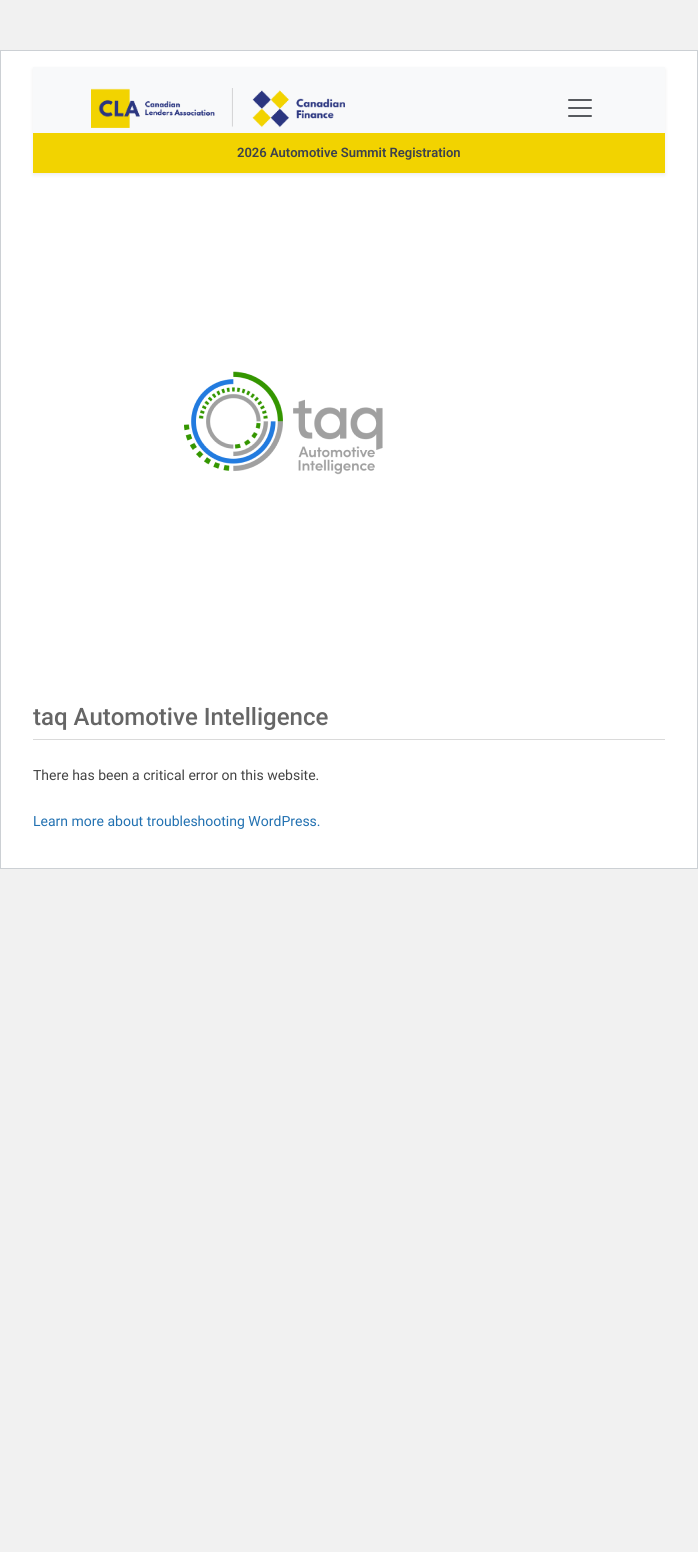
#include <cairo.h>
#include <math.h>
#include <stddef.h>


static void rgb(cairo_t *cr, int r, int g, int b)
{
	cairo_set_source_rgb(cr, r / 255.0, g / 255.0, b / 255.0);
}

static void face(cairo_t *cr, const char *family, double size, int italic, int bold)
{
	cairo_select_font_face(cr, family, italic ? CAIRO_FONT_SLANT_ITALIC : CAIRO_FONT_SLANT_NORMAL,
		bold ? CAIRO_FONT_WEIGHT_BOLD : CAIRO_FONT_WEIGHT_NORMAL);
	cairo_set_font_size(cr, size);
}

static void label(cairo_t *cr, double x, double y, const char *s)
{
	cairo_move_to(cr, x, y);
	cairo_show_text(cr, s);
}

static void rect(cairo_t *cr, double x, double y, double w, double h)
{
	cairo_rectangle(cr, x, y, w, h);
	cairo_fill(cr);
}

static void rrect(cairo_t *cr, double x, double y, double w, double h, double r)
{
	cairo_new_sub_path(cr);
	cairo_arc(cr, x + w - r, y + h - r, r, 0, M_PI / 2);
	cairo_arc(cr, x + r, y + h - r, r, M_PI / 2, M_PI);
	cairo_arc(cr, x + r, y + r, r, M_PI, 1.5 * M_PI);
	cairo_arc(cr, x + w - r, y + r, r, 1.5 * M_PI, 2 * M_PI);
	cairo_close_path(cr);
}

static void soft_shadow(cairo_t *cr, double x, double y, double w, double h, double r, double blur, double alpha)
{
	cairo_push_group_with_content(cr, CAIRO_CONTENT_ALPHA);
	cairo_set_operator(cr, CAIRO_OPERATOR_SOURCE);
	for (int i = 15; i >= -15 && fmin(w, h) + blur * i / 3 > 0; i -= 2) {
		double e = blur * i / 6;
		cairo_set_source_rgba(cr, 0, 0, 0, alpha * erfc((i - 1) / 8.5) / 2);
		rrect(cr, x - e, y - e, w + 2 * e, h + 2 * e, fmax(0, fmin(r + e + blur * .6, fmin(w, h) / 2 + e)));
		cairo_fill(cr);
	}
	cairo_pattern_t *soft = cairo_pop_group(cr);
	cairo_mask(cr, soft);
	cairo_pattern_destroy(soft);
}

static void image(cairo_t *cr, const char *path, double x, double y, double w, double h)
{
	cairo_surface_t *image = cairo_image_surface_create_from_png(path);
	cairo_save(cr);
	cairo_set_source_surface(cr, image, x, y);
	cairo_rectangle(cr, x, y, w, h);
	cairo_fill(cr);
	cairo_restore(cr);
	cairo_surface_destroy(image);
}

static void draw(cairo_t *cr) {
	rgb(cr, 241, 241, 241);
	cairo_paint(cr);
	rgb(cr, 255, 255, 255);
	cairo_rectangle(cr, 0.5, 50.5, 697, 818);
	cairo_fill_preserve(cr);
	rgb(cr, 204, 208, 212);
	cairo_set_line_width(cr, 1);
	cairo_stroke(cr);
	rgb(cr, 0, 0, 0);
	soft_shadow(cr, 33, 69, 632, 106, 0, 2, 0.07);
	rgb(cr, 248, 249, 250);
	rect(cr, 33, 67, 632, 66);
	image(cr, "image0.png", 91, 88, 254, 40);
	image(cr, "image1.png", 568, 99, 24, 18);
	rgb(cr, 242, 211, 0);
	rect(cr, 33, 133, 632, 40);
	face(cr, "Roboto SemiBold", 13, 0, 0);
	rgb(cr, 60, 65, 77);
	label(cr, 237, 157, "2026 Automotive Summit Registration");
	image(cr, "image2.png", 184, 371, 199, 104);
	rgb(cr, 218, 218, 218);
	rect(cr, 33, 739, 632, 1);
	face(cr, "Roboto Medium", 24, 0, 0);
	rgb(cr, 102, 102, 102);
	label(cr, 33, 725, "taq Automotive Intelligence");
	face(cr, "Roboto", 14, 0, 0);
	rgb(cr, 68, 68, 68);
	label(cr, 33, 780, "There has been a critical error on this website.");
	rgb(cr, 34, 113, 177);
	label(cr, 33, 826, "Learn more about troubleshooting WordPress.");
}

int main(void) {
	cairo_surface_t *surface = cairo_image_surface_create(CAIRO_FORMAT_RGB24, 698, 1552);
	cairo_t *cr = cairo_create(surface);
	cairo_font_options_t *options = cairo_font_options_create();
	cairo_font_options_set_hint_metrics(options, CAIRO_HINT_METRICS_OFF);
	cairo_font_options_set_hint_style(options, CAIRO_HINT_STYLE_NONE);
	cairo_set_font_options(cr, options);
	cairo_set_miter_limit(cr, 4);
	draw(cr);
	cairo_surface_write_to_png(surface, "render.png");
	cairo_font_options_destroy(options);
	cairo_destroy(cr);
	cairo_surface_destroy(surface);
	return 0;
}
